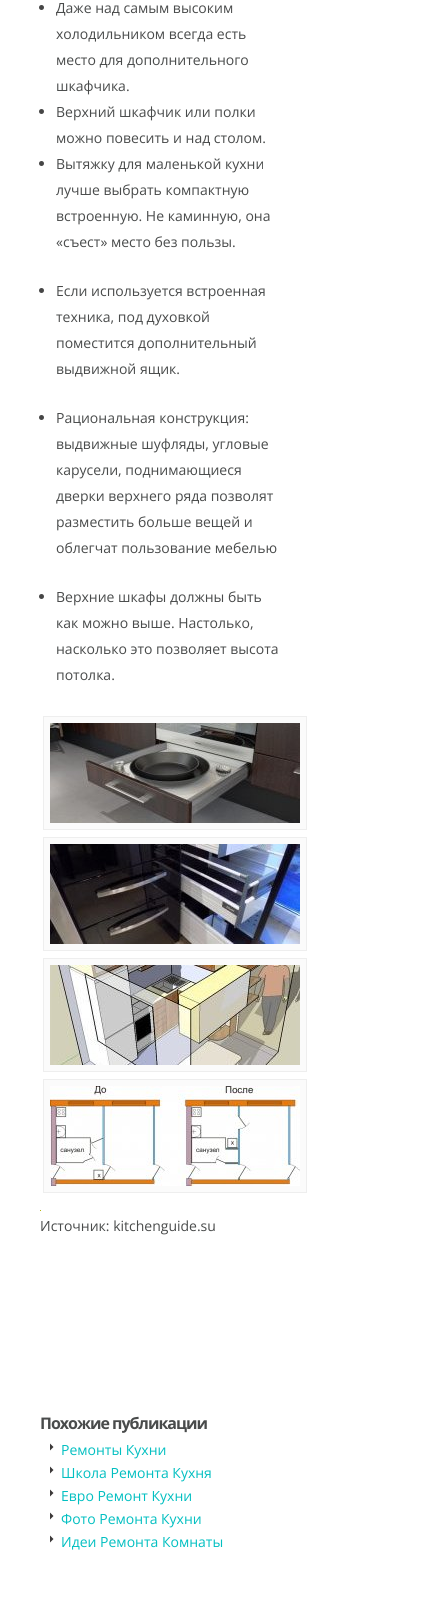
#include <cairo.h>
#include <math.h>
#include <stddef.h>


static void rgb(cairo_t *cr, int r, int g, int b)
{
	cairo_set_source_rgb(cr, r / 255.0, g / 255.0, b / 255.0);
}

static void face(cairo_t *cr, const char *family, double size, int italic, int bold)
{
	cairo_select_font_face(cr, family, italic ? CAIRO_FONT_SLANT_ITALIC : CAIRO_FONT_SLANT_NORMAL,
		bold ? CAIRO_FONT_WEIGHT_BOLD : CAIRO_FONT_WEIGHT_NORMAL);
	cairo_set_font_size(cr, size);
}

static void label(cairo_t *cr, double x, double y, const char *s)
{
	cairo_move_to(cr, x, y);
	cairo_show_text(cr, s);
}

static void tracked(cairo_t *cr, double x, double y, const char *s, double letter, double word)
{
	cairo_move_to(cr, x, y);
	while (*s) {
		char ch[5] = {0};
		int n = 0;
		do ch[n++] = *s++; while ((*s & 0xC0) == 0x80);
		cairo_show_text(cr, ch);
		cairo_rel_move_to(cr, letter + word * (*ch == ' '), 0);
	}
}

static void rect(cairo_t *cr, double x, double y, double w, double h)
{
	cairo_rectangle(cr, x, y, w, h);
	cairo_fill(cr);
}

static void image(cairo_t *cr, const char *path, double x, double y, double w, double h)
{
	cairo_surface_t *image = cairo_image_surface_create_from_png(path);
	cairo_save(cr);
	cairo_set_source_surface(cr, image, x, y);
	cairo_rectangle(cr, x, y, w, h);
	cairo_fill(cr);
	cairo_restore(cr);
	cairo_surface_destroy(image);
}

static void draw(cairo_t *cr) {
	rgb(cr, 255, 255, 255);
	cairo_paint(cr);
	rgb(cr, 70, 70, 70);
	cairo_arc(cr, 41.5, 7.5, 2.5, 0, 2 * M_PI);
	cairo_fill(cr);
	face(cr, "Open Sans", 14, 0, 0);
	rgb(cr, 73, 75, 75);
	label(cr, 56, 13, "Даже над самым высоким");
	label(cr, 56, 39, "холодильником всегда есть");
	label(cr, 56, 65, "место для дополнительного");
	label(cr, 56, 91, "шкафчика.");
	rgb(cr, 70, 70, 70);
	cairo_new_path(cr);
	cairo_arc(cr, 41.5, 111.5, 2.5, 0, 2 * M_PI);
	cairo_fill(cr);
	rgb(cr, 73, 75, 75);
	label(cr, 56, 117, "Верхний шкафчик или полки");
	label(cr, 56, 143, "можно повесить и над столом.");
	rgb(cr, 70, 70, 70);
	cairo_new_path(cr);
	cairo_arc(cr, 41.5, 163.5, 2.5, 0, 2 * M_PI);
	cairo_fill(cr);
	rgb(cr, 73, 75, 75);
	label(cr, 56, 169, "Вытяжку для маленькой кухни");
	label(cr, 56, 195, "лучше выбрать компактную");
	label(cr, 56, 221, "встроенную. Не каминную, она");
	label(cr, 56, 247, "«съест» место без пользы.");
	rgb(cr, 70, 70, 70);
	cairo_new_path(cr);
	cairo_arc(cr, 41.5, 290.5, 2.5, 0, 2 * M_PI);
	cairo_fill(cr);
	rgb(cr, 73, 75, 75);
	label(cr, 56, 296, "Если используется встроенная");
	label(cr, 56, 322, "техника, под духовкой");
	label(cr, 56, 348, "поместится дополнительный");
	label(cr, 56, 374, "выдвижной ящик.");
	rgb(cr, 70, 70, 70);
	cairo_new_path(cr);
	cairo_arc(cr, 41.5, 417.5, 2.5, 0, 2 * M_PI);
	cairo_fill(cr);
	rgb(cr, 73, 75, 75);
	label(cr, 56, 423, "Рациональная конструкция:");
	label(cr, 56, 449, "выдвижные шуфляды, угловые");
	label(cr, 56, 475, "карусели, поднимающиеся");
	label(cr, 56, 501, "дверки верхнего ряда позволят");
	label(cr, 56, 527, "разместить больше вещей и");
	label(cr, 56, 553, "облегчат пользование мебелью");
	rgb(cr, 70, 70, 70);
	cairo_new_path(cr);
	cairo_arc(cr, 41.5, 596.5, 2.5, 0, 2 * M_PI);
	cairo_fill(cr);
	rgb(cr, 73, 75, 75);
	label(cr, 56, 602, "Верхние шкафы должны быть");
	label(cr, 56, 628, "как можно выше. Настолько,");
	label(cr, 56, 654, "насколько это позволяет высота");
	label(cr, 56, 680, "потолка.");
	rgb(cr, 251, 251, 251);
	cairo_rectangle(cr, 43.5, 716.5, 263, 113);
	cairo_fill_preserve(cr);
	rgb(cr, 238, 238, 238);
	cairo_set_line_width(cr, 1);
	cairo_stroke(cr);
	image(cr, "image0.png", 50, 723, 250, 100);
	rgb(cr, 251, 251, 251);
	cairo_rectangle(cr, 43.5, 837.5, 263, 113);
	cairo_fill_preserve(cr);
	rgb(cr, 238, 238, 238);
	cairo_stroke(cr);
	image(cr, "image1.png", 50, 844, 250, 100);
	rgb(cr, 251, 251, 251);
	cairo_rectangle(cr, 43.5, 958.5, 263, 113);
	cairo_fill_preserve(cr);
	rgb(cr, 238, 238, 238);
	cairo_stroke(cr);
	image(cr, "image2.png", 50, 965, 250, 100);
	rgb(cr, 251, 251, 251);
	cairo_rectangle(cr, 43.5, 1079.5, 263, 113);
	cairo_fill_preserve(cr);
	rgb(cr, 238, 238, 238);
	cairo_stroke(cr);
	image(cr, "image3.png", 50, 1086, 250, 100);
	rgb(cr, 181, 179, 18);
	rect(cr, 40, 1210, 1, 1);
	rgb(cr, 73, 75, 75);
	label(cr, 40, 1231, "Источник: kitchenguide.su");
	face(cr, "Open Sans", 16, 0, 1);
	tracked(cr, 40, 1429, "Похожие публикации", -1, 0);
	image(cr, "image4.png", 50, 1443, 4, 8);
	face(cr, "Open Sans", 14, 0, 0);
	rgb(cr, 2, 191, 193);
	label(cr, 61, 1455, "Ремонты Кухни");
	image(cr, "image4.png", 50, 1466, 4, 8);
	label(cr, 61, 1478, "Школа Ремонта Кухня");
	image(cr, "image4.png", 50, 1489, 4, 8);
	label(cr, 61, 1501, "Евро Ремонт Кухни");
	image(cr, "image4.png", 50, 1512, 4, 8);
	label(cr, 61, 1524, "Фото Ремонта Кухни");
	image(cr, "image4.png", 50, 1535, 4, 8);
	label(cr, 61, 1547, "Идеи Ремонта Комнаты");
}

int main(void) {
	cairo_surface_t *surface = cairo_image_surface_create(CAIRO_FORMAT_RGB24, 430, 1611);
	cairo_t *cr = cairo_create(surface);
	cairo_font_options_t *options = cairo_font_options_create();
	cairo_font_options_set_hint_metrics(options, CAIRO_HINT_METRICS_OFF);
	cairo_font_options_set_hint_style(options, CAIRO_HINT_STYLE_NONE);
	cairo_set_font_options(cr, options);
	cairo_set_miter_limit(cr, 4);
	draw(cr);
	cairo_surface_write_to_png(surface, "render.png");
	cairo_font_options_destroy(options);
	cairo_destroy(cr);
	cairo_surface_destroy(surface);
	return 0;
}
